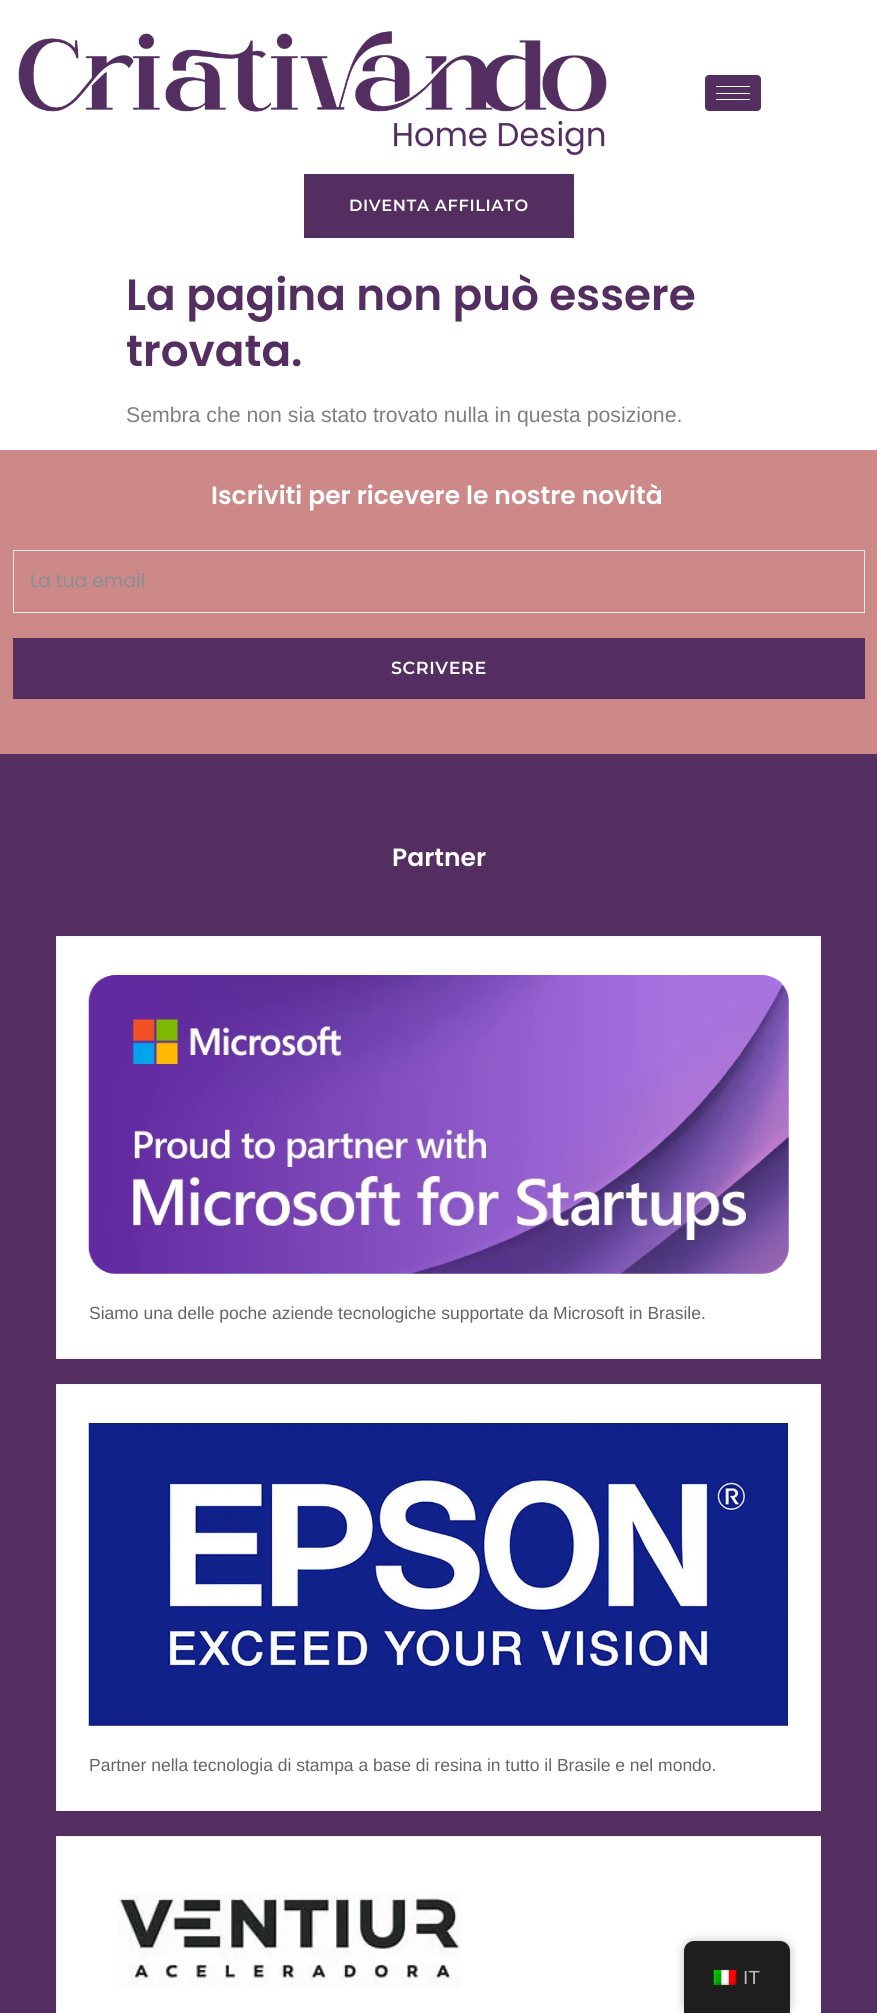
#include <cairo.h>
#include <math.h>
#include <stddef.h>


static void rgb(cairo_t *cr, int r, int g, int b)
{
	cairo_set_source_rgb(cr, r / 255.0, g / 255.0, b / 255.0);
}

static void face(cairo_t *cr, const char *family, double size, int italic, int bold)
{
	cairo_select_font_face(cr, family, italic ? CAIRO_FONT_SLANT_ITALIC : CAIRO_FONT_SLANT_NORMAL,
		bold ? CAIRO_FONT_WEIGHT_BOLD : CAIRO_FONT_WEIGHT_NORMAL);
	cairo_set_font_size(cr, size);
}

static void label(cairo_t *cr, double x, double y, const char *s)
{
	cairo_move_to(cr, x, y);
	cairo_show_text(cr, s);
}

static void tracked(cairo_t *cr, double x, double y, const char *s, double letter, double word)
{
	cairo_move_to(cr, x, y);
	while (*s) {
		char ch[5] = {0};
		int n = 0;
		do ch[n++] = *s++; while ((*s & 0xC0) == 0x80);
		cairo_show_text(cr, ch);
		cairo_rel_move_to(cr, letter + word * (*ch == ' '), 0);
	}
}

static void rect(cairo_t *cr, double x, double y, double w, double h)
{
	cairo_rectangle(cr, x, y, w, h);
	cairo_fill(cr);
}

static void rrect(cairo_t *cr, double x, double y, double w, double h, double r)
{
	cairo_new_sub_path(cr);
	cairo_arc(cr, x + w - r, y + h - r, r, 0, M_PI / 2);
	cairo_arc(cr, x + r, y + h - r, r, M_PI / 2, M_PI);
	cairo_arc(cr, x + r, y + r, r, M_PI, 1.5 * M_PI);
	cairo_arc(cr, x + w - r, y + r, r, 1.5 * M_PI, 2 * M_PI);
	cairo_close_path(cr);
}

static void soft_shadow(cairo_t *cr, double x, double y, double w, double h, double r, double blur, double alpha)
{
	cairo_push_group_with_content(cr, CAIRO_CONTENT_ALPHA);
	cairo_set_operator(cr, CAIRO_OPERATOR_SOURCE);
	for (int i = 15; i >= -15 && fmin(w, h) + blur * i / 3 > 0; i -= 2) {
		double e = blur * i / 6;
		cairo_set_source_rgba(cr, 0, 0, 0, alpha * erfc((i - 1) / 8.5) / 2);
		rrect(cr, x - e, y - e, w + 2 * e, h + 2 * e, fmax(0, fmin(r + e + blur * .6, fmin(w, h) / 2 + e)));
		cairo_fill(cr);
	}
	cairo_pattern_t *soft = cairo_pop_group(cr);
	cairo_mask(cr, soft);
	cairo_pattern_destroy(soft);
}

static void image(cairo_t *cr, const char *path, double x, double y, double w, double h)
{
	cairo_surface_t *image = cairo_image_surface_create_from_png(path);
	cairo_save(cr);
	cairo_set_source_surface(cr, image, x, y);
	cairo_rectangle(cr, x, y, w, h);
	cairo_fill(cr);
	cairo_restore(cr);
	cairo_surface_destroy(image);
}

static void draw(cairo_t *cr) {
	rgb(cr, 255, 255, 255);
	cairo_paint(cr);
	image(cr, "image0.png", 18, 31, 589, 124);
	rgb(cr, 84, 46, 97);
	rrect(cr, 705.5, 75.5, 55, 35, 3.5);
	cairo_fill_preserve(cr);
	cairo_set_line_width(cr, 1);
	cairo_stroke(cr);
	rgb(cr, 255, 255, 255);
	rect(cr, 716, 86, 34, 1);
	rect(cr, 716, 93, 34, 1);
	rect(cr, 716, 99, 34, 1);
	rgb(cr, 84, 46, 97);
	rect(cr, 304, 174, 270, 64);
	face(cr, "Montserrat SemiBold", 16.25, 0, 0);
	rgb(cr, 255, 255, 255);
	tracked(cr, 349, 211, "DIVENTA AFFILIATO", 0.6, 0);
	face(cr, "Poppins SemiBold", 43.75, 0, 0);
	rgb(cr, 84, 46, 97);
	label(cr, 126, 310, "La pagina non può essere");
	label(cr, 126, 366, "trovata.");
	face(cr, "Arimo", 21.25, 0, 0);
	rgb(cr, 127, 127, 127);
	label(cr, 126, 422, "Sembra che non sia stato trovato nulla in questa posizione.");
	rgb(cr, 205, 137, 135);
	rect(cr, 0, 450, 877, 304);
	face(cr, "Poppins SemiBold", 25, 0, 0);
	rgb(cr, 255, 255, 255);
	label(cr, 211, 504, "Iscriviti per ricevere le nostre novità");
	cairo_rectangle(cr, 13.5, 550.5, 851, 62);
	rgb(cr, 237, 237, 233);
	cairo_stroke(cr);
	face(cr, "Poppins", 18.75, 0, 0);
	rgb(cr, 134, 142, 150);
	label(cr, 30, 587, "La tua email");
	rgb(cr, 84, 46, 97);
	rect(cr, 13, 638, 852, 61);
	face(cr, "Montserrat SemiBold", 17.5, 0, 0);
	rgb(cr, 255, 255, 255);
	tracked(cr, 391, 674, "SCRIVERE", 0.6, 0);
	rgb(cr, 84, 46, 97);
	rect(cr, 0, 754, 877, 1259);
	face(cr, "Poppins SemiBold", 25, 0, 0);
	rgb(cr, 255, 255, 255);
	label(cr, 392, 866, "Partner");
	cairo_rectangle(cr, 56.5, 936.5, 764, 422);
	cairo_fill_preserve(cr);
	rgb(cr, 245, 245, 245);
	cairo_stroke(cr);
	image(cr, "image1.png", 88, 975, 701, 299);
	face(cr, "Arimo", 17.5, 0, 0);
	rgb(cr, 101, 101, 101);
	label(cr, 89, 1319, "Siamo una delle poche aziende tecnologiche supportate da Microsoft in Brasile.");
	rgb(cr, 255, 255, 255);
	cairo_rectangle(cr, 56.5, 1384.5, 764, 426);
	cairo_fill_preserve(cr);
	rgb(cr, 245, 245, 245);
	cairo_stroke(cr);
	image(cr, "image2.png", 88, 1422, 701, 304);
	rgb(cr, 101, 101, 101);
	label(cr, 89, 1771, "Partner nella tecnologia di stampa a base di resina in tutto il Brasile e nel mondo.");
	rgb(cr, 255, 255, 255);
	cairo_rectangle(cr, 56.5, 1836.5, 764, 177);
	cairo_fill_preserve(cr);
	rgb(cr, 245, 245, 245);
	cairo_stroke(cr);
	image(cr, "image3.png", 118, 1893, 344, 95);
	rgb(cr, 0, 0, 0);
	soft_shadow(cr, 684, 1941, 106, 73, 10, 5, 0.25);
	rgb(cr, 30, 30, 30);
	cairo_new_path(cr);
	cairo_move_to(cr, 694, 1941);
	cairo_line_to(cr, 780, 1941);
	cairo_curve_to(cr, 785.5, 1941, 790, 1945.5, 790, 1951);
	cairo_line_to(cr, 790, 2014);
	cairo_line_to(cr, 684, 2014);
	cairo_line_to(cr, 684, 1951);
	cairo_curve_to(cr, 684, 1945.5, 688.5, 1941, 694, 1941);
	cairo_close_path(cr);
	cairo_fill(cr);
	image(cr, "image4.png", 713, 1969, 24, 16);
	face(cr, "Arimo", 19, 0, 0);
	rgb(cr, 189, 189, 189);
	label(cr, 743, 1984, "IT");
}

int main(void) {
	cairo_surface_t *surface = cairo_image_surface_create(CAIRO_FORMAT_RGB24, 877, 2013);
	cairo_t *cr = cairo_create(surface);
	cairo_font_options_t *options = cairo_font_options_create();
	cairo_font_options_set_hint_metrics(options, CAIRO_HINT_METRICS_OFF);
	cairo_font_options_set_hint_style(options, CAIRO_HINT_STYLE_NONE);
	cairo_set_font_options(cr, options);
	cairo_set_miter_limit(cr, 4);
	draw(cr);
	cairo_surface_write_to_png(surface, "render.png");
	cairo_font_options_destroy(options);
	cairo_destroy(cr);
	cairo_surface_destroy(surface);
	return 0;
}
